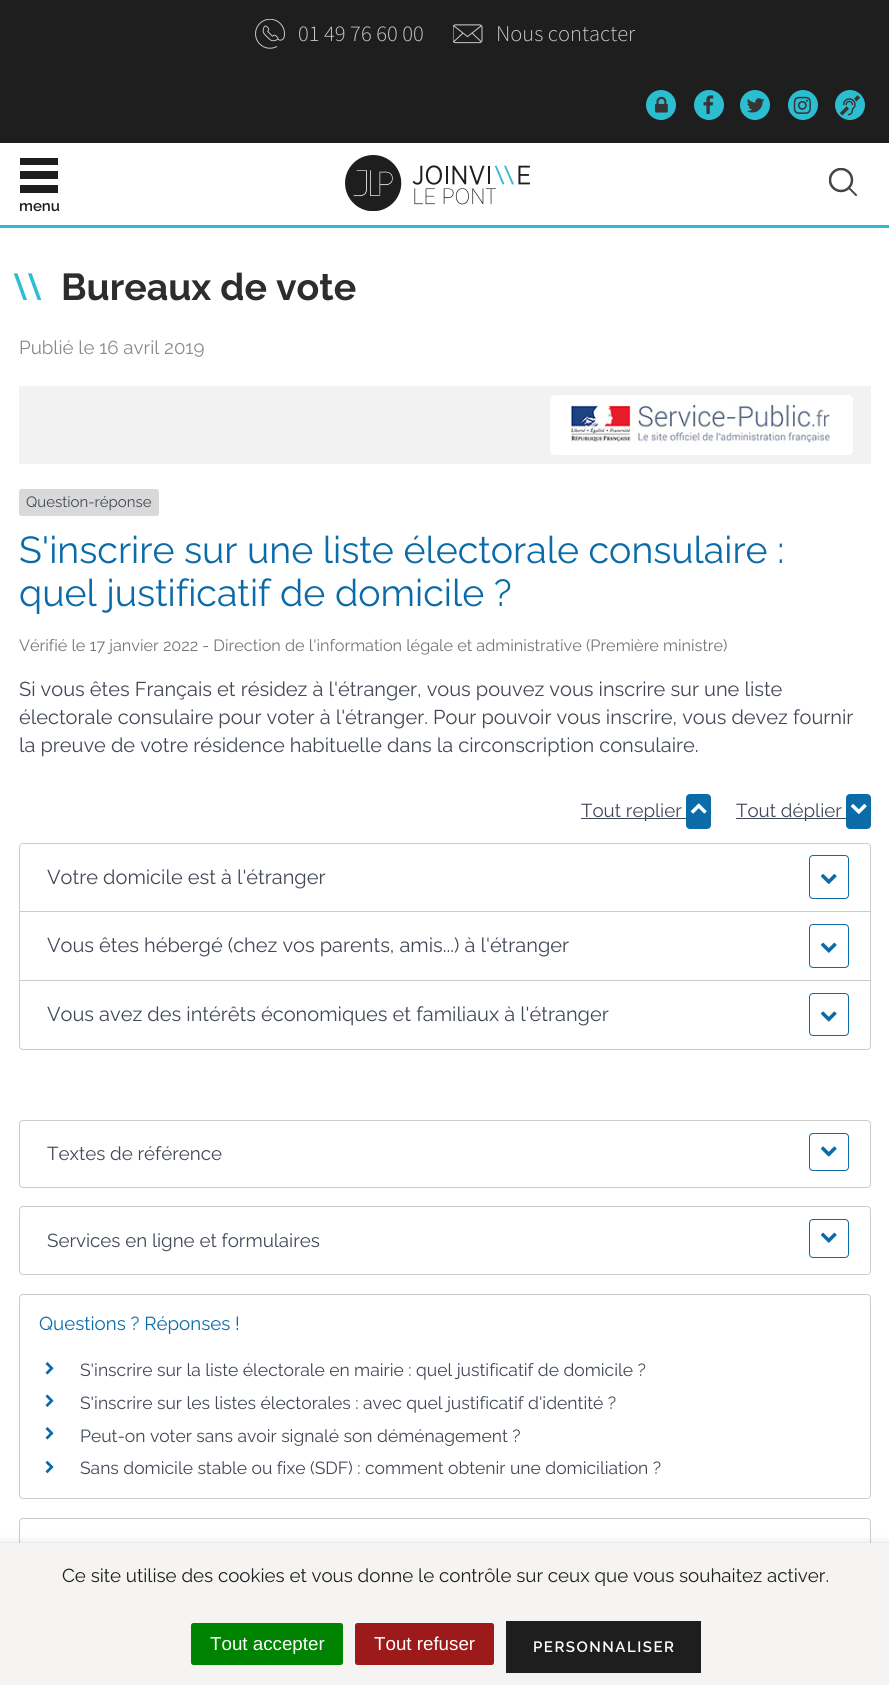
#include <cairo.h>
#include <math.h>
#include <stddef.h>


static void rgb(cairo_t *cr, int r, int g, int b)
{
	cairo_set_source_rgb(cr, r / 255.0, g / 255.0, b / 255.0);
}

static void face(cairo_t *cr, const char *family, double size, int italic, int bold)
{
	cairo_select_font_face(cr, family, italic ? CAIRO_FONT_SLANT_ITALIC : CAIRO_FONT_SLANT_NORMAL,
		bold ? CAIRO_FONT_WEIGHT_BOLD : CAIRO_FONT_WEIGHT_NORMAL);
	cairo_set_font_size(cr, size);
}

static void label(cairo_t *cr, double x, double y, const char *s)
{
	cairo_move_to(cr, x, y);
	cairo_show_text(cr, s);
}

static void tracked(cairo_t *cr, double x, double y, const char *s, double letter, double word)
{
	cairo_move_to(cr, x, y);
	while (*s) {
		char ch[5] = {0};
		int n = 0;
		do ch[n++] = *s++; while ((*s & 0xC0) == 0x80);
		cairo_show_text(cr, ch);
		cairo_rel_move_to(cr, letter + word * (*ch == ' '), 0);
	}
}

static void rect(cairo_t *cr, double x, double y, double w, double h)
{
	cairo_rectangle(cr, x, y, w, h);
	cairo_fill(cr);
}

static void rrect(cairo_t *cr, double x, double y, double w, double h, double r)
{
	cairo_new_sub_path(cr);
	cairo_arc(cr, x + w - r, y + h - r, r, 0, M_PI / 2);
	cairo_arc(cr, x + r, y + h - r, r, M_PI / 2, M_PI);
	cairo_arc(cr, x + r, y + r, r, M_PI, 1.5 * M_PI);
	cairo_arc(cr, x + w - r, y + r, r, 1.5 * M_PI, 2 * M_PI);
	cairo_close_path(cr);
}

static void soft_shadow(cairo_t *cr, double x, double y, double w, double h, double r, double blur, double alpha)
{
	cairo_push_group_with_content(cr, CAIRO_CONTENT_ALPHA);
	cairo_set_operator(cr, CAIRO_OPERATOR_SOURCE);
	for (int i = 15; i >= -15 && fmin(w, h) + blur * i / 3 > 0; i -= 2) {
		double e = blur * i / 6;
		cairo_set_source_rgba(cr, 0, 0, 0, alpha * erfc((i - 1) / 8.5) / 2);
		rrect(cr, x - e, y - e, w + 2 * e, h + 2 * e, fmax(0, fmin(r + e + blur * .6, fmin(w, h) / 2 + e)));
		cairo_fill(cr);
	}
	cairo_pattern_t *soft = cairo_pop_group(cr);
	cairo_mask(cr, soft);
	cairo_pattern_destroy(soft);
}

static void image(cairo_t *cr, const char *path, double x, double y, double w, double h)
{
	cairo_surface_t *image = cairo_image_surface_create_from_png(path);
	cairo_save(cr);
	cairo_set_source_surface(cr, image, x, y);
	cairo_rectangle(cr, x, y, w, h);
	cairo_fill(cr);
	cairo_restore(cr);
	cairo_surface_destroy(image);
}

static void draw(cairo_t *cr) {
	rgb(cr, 255, 255, 255);
	cairo_paint(cr);
	rgb(cr, 30, 30, 30);
	rect(cr, 0, 0, 889, 143);
	image(cr, "image0.png", 255, 19, 30, 30);
	face(cr, "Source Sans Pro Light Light", 22.5, 0, 0);
	rgb(cr, 199, 199, 199);
	label(cr, 298, 41, "01 49 76 60 00");
	image(cr, "image1.png", 453, 24, 30, 20);
	label(cr, 496, 41, "Nous contacter");
	rgb(cr, 43, 190, 208);
	cairo_new_path(cr);
	cairo_arc(cr, 661, 105, 15, 0, 2 * M_PI);
	cairo_fill(cr);
	image(cr, "image2.png", 655, 96, 13, 17);
	cairo_arc(cr, 709, 105, 15, 0, 2 * M_PI);
	cairo_fill(cr);
	image(cr, "image3.png", 703, 95, 11, 19);
	cairo_arc(cr, 755, 105, 15, 0, 2 * M_PI);
	cairo_fill(cr);
	image(cr, "image4.png", 747, 98, 18, 15);
	cairo_arc(cr, 803, 105, 15, 0, 2 * M_PI);
	cairo_fill(cr);
	image(cr, "image5.png", 793, 96, 18, 18);
	cairo_arc(cr, 850, 105, 15, 0, 2 * M_PI);
	cairo_fill(cr);
	image(cr, "image6.png", 840, 95, 20, 21);
	rect(cr, 0, 225, 889, 3);
	image(cr, "image7.png", 345, 155, 185, 56);
	cairo_new_path(cr);
	cairo_move_to(cr, 856, 195);
	cairo_line_to(cr, 849, 188);
	rgb(cr, 68, 68, 68);
	cairo_set_line_width(cr, 1.9);
	cairo_set_line_cap(cr, CAIRO_LINE_CAP_SQUARE);
	cairo_stroke(cr);
	cairo_save(cr);
	cairo_rectangle(cr, 829, 168, 30, 30);
	cairo_clip(cr);
	cairo_arc(cr, 841, 180, 11, 0, 2 * M_PI);
	cairo_set_line_width(cr, 2.5);
	cairo_set_line_cap(cr, CAIRO_LINE_CAP_BUTT);
	cairo_stroke(cr);
	cairo_restore(cr);
	rgb(cr, 30, 30, 30);
	rect(cr, 20, 158, 38, 7);
	rect(cr, 20, 171, 38, 8);
	rect(cr, 20, 185, 38, 8);
	face(cr, "Raleway SemiBold", 15, 0, 0);
	label(cr, 19, 211, "menu");
	face(cr, "Raleway Medium", 37.5, 1, 0);
	rgb(cr, 43, 190, 208);
	tracked(cr, 6, 300, "\\\\", -8, 0);
	face(cr, "Raleway", 37.5, 0, 1);
	rgb(cr, 45, 45, 45);
	label(cr, 61, 300, "Bureaux de vote");
	face(cr, "Raleway", 18.75, 0, 0);
	rgb(cr, 137, 137, 137);
	label(cr, 19, 354, "Publié le 16 avril 2019");
	rgb(cr, 242, 242, 242);
	rect(cr, 19, 386, 852, 78);
	rgb(cr, 255, 255, 255);
	rrect(cr, 550, 395, 303, 60, 5);
	cairo_fill(cr);
	image(cr, "image8.png", 571, 401, 259, 44);
	rgb(cr, 217, 217, 217);
	rrect(cr, 19, 489, 140, 27, 2.5);
	cairo_fill(cr);
	face(cr, "Raleway", 15, 0, 0);
	rgb(cr, 65, 72, 86);
	label(cr, 26, 507, "Question-réponse");
	face(cr, "Raleway", 37.5, 0, 0);
	rgb(cr, 11, 107, 168);
	label(cr, 19, 563, "S'inscrire sur une liste électorale consulaire :");
	label(cr, 19, 606, "quel justificatif de domicile ?");
	face(cr, "Raleway", 16.25, 0, 0);
	rgb(cr, 117, 117, 117);
	label(cr, 19, 651, "Vérifié le 17 janvier 2022 - Direction de l'information légale et administrative (Première ministre)");
	face(cr, "Raleway", 20, 0, 0);
	rgb(cr, 65, 72, 86);
	label(cr, 19, 696, "Si vous êtes Français et résidez à l'étranger, vous pouvez vous inscrire sur une liste");
	label(cr, 19, 724, "électorale consulaire pour voter à l'étranger. Pour pouvoir vous inscrire, vous devez fournir");
	label(cr, 19, 752, "la preuve de votre résidence habituelle dans la circonscription consulaire.");
	rect(cr, 581, 818, 105, 1);
	face(cr, "Raleway", 18.75, 0, 0);
	label(cr, 581, 817, "Tout replier");
	rgb(cr, 11, 107, 168);
	rrect(cr, 686, 794, 25, 35, 4);
	cairo_fill(cr);
	image(cr, "image9.png", 690, 803, 17, 11);
	rgb(cr, 65, 72, 86);
	rect(cr, 736, 818, 110, 1);
	label(cr, 736, 817, "Tout déplier");
	rgb(cr, 11, 107, 168);
	rrect(cr, 846, 794, 25, 35, 4);
	cairo_fill(cr);
	image(cr, "image10.png", 850, 804, 17, 10);
	rrect(cr, 19.5, 843.5, 851, 206, 3.5);
	rgb(cr, 204, 204, 204);
	cairo_set_line_width(cr, 1);
	cairo_set_line_cap(cr, CAIRO_LINE_CAP_BUTT);
	cairo_stroke(cr);
	face(cr, "Raleway", 20, 0, 0);
	rgb(cr, 65, 72, 86);
	label(cr, 47, 884, "Votre domicile est à l'étranger");
	rrect(cr, 809.5, 855.5, 39, 43, 3.5);
	rgb(cr, 11, 107, 168);
	cairo_stroke(cr);
	image(cr, "image11.png", 820, 874, 17, 10);
	rgb(cr, 204, 204, 204);
	rect(cr, 20, 911, 850, 1);
	rgb(cr, 65, 72, 86);
	label(cr, 47, 952, "Vous êtes hébergé (chez vos parents, amis...) à l'étranger");
	rrect(cr, 809.5, 924.5, 39, 43, 3.5);
	rgb(cr, 11, 107, 168);
	cairo_stroke(cr);
	image(cr, "image12.png", 820, 942, 17, 11);
	rgb(cr, 204, 204, 204);
	rect(cr, 20, 980, 850, 1);
	rgb(cr, 65, 72, 86);
	label(cr, 47, 1021, "Vous avez des intérêts économiques et familiaux à l'étranger");
	rrect(cr, 809.5, 993.5, 39, 42, 3.5);
	rgb(cr, 11, 107, 168);
	cairo_stroke(cr);
	image(cr, "image13.png", 820, 1011, 17, 11);
	rrect(cr, 19.5, 1120.5, 851, 67, 3.5);
	rgb(cr, 204, 204, 204);
	cairo_stroke(cr);
	face(cr, "Raleway", 18.75, 0, 0);
	rgb(cr, 65, 72, 86);
	label(cr, 47, 1160, "Textes de référence");
	rrect(cr, 809.5, 1133.5, 39, 37, 3.5);
	rgb(cr, 11, 107, 168);
	cairo_stroke(cr);
	image(cr, "image13.png", 820, 1146, 17, 11);
	rrect(cr, 19.5, 1206.5, 851, 68, 3.5);
	rgb(cr, 204, 204, 204);
	cairo_stroke(cr);
	rgb(cr, 65, 72, 86);
	label(cr, 47, 1247, "Services en ligne et formulaires");
	rrect(cr, 809.5, 1219.5, 39, 38, 3.5);
	rgb(cr, 11, 107, 168);
	cairo_stroke(cr);
	image(cr, "image12.png", 820, 1232, 17, 11);
	rrect(cr, 19.5, 1294.5, 851, 204, 3.5);
	rgb(cr, 204, 204, 204);
	cairo_stroke(cr);
	rgb(cr, 11, 107, 168);
	label(cr, 39, 1330, "Questions ? Réponses !");
	image(cr, "image14.png", 45, 1362, 9, 13);
	face(cr, "Raleway", 17.5, 0, 0);
	rgb(cr, 65, 72, 86);
	label(cr, 80, 1376, "S'inscrire sur la liste électorale en mairie : quel justificatif de domicile ?");
	image(cr, "image15.png", 45, 1394, 9, 13);
	label(cr, 80, 1409, "S'inscrire sur les listes électorales : avec quel justificatif d'identité ?");
	image(cr, "image14.png", 45, 1427, 9, 13);
	label(cr, 80, 1442, "Peut-on voter sans avoir signalé son déménagement ?");
	image(cr, "image16.png", 45, 1461, 9, 13);
	label(cr, 80, 1474, "Sans domicile stable ou fixe (SDF) : comment obtenir une domiciliation ?");
	rrect(cr, 19.5, 1518.5, 851, 127, 3.5);
	rgb(cr, 204, 204, 204);
	cairo_stroke(cr);
	rgb(cr, 0, 0, 0);
	soft_shadow(cr, 0, 1549, 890, 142, 0, 6, 0.5);
	rgb(cr, 245, 244, 242);
	rect(cr, 0, 1543, 889, 142);
	face(cr, "Raleway", 18.75, 0, 0);
	rgb(cr, 30, 30, 30);
	label(cr, 62, 1582, "Ce site utilise des cookies et vous donne le contrôle sur ceux que vous souhaitez activer.");
	rgb(cr, 0, 131, 0);
	rrect(cr, 191, 1623, 152, 42, 2.5);
	cairo_fill(cr);
	face(cr, "Liberation Sans", 18.75, 0, 0);
	rgb(cr, 255, 255, 255);
	label(cr, 210, 1650, "Tout accepter");
	rgb(cr, 156, 26, 26);
	rrect(cr, 355, 1623, 139, 42, 2.5);
	cairo_fill(cr);
	rgb(cr, 255, 255, 255);
	label(cr, 374, 1650, "Tout refuser");
	rgb(cr, 30, 30, 30);
	rect(cr, 506, 1621, 195, 52);
	face(cr, "Raleway SemiBold", 15, 0, 0);
	rgb(cr, 255, 255, 255);
	tracked(cr, 533, 1652, "PERSONNALISER", 1.5, 0);
}

int main(void) {
	cairo_surface_t *surface = cairo_image_surface_create(CAIRO_FORMAT_RGB24, 889, 1685);
	cairo_t *cr = cairo_create(surface);
	cairo_font_options_t *options = cairo_font_options_create();
	cairo_font_options_set_hint_metrics(options, CAIRO_HINT_METRICS_OFF);
	cairo_font_options_set_hint_style(options, CAIRO_HINT_STYLE_NONE);
	cairo_set_font_options(cr, options);
	cairo_set_miter_limit(cr, 4);
	draw(cr);
	cairo_surface_write_to_png(surface, "render.png");
	cairo_font_options_destroy(options);
	cairo_destroy(cr);
	cairo_surface_destroy(surface);
	return 0;
}
